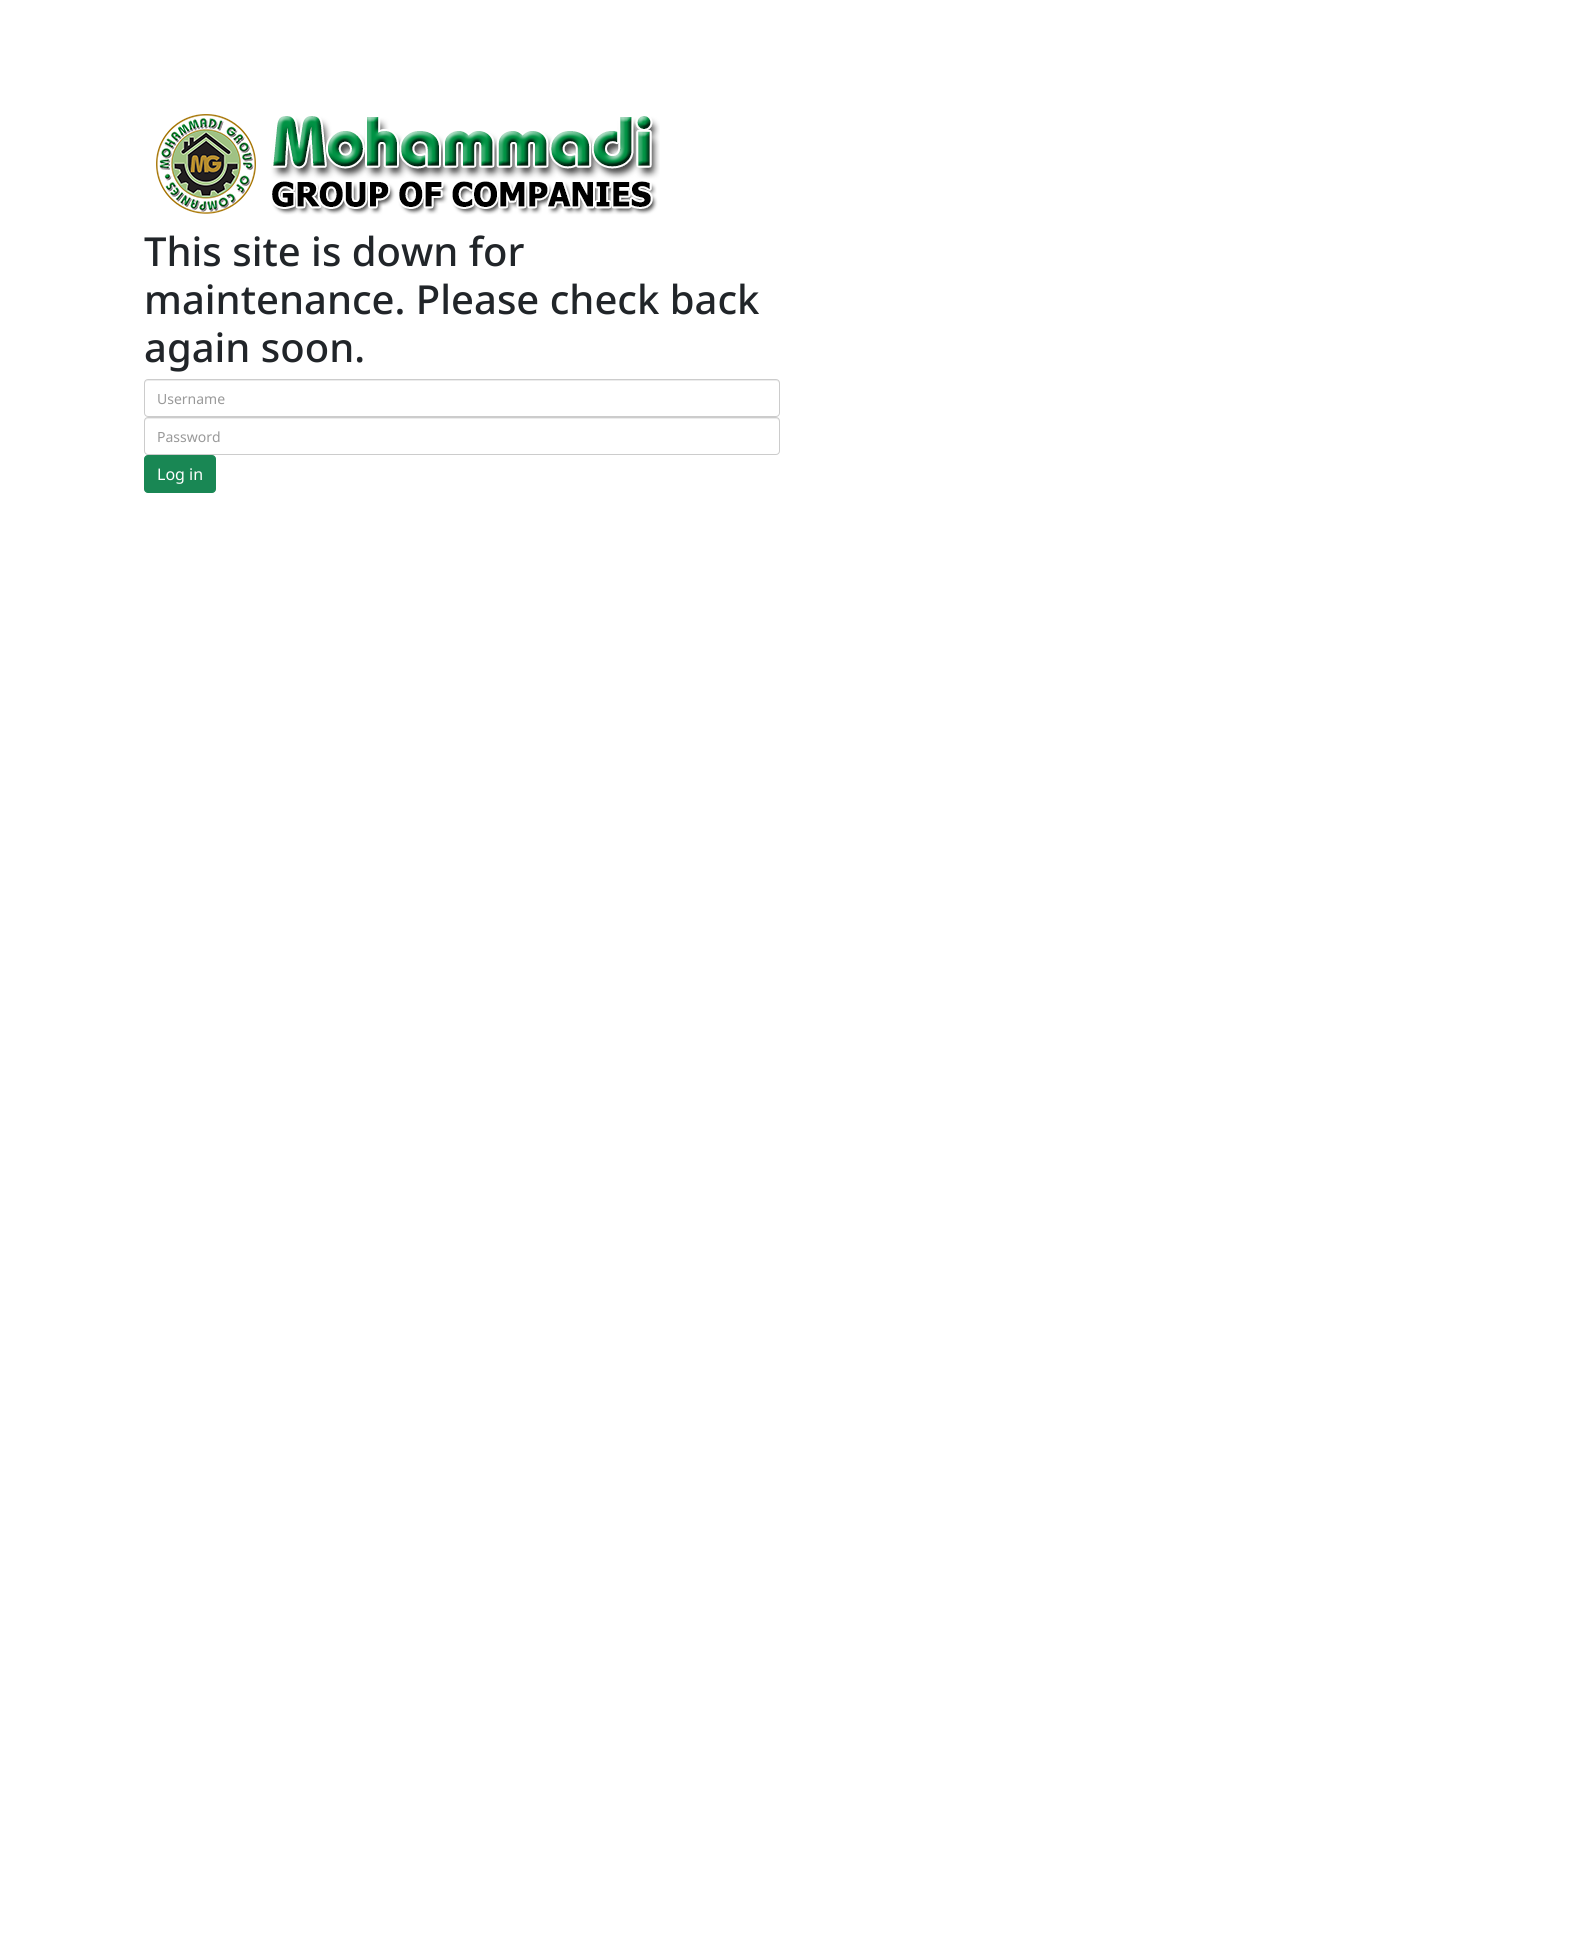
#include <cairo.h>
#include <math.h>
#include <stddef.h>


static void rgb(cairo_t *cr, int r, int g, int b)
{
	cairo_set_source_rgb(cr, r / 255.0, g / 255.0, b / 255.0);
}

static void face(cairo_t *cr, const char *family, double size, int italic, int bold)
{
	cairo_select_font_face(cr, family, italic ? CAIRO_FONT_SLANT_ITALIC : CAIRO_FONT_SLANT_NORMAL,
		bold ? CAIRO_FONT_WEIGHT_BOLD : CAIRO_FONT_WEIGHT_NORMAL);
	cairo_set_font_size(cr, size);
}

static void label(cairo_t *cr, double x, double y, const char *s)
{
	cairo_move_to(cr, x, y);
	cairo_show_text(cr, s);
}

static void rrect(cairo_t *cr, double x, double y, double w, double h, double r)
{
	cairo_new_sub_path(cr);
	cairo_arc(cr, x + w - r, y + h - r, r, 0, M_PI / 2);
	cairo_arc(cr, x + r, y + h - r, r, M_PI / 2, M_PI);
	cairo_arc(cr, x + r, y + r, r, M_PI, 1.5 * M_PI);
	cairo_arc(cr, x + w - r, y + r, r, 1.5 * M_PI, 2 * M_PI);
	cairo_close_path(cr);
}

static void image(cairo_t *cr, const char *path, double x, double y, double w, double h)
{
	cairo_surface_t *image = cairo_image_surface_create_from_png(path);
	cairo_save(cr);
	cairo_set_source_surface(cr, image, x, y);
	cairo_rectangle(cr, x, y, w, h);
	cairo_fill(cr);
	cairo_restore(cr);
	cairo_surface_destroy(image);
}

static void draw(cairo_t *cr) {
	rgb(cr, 255, 255, 255);
	cairo_paint(cr);
	image(cr, "image0.png", 156, 114, 504, 101);
	face(cr, "Noto Sans Medium", 40, 0, 0);
	rgb(cr, 33, 37, 41);
	label(cr, 144, 266, "This site is down for");
	label(cr, 144, 314, "maintenance. Please check back");
	label(cr, 144, 362, "again soon.");
	rgb(cr, 236, 236, 236);
	cairo_new_path(cr);
	cairo_move_to(cr, 148, 381);
	cairo_line_to(cr, 776, 381);
	cairo_curve_to(cr, 778, 381, 779, 382, 779, 384);
	cairo_line_to(cr, 779, 383);
	cairo_curve_to(cr, 779, 381, 778, 380, 776, 380);
	cairo_line_to(cr, 148, 380);
	cairo_curve_to(cr, 146, 380, 145, 381, 145, 383);
	cairo_line_to(cr, 145, 384);
	cairo_curve_to(cr, 145, 382, 146, 381, 148, 381);
	cairo_close_path(cr);
	cairo_fill(cr);
	rrect(cr, 144.5, 379.5, 635, 37, 3.5);
	rgb(cr, 204, 204, 204);
	cairo_set_line_width(cr, 1);
	cairo_stroke(cr);
	face(cr, "Noto Sans", 14, 0, 0);
	rgb(cr, 153, 153, 153);
	label(cr, 157, 404, "Username");
	rgb(cr, 236, 236, 236);
	cairo_new_path(cr);
	cairo_move_to(cr, 148, 419);
	cairo_line_to(cr, 776, 419);
	cairo_curve_to(cr, 778, 419, 779, 420, 779, 422);
	cairo_line_to(cr, 779, 421);
	cairo_curve_to(cr, 779, 419, 778, 418, 776, 418);
	cairo_line_to(cr, 148, 418);
	cairo_curve_to(cr, 146, 418, 145, 419, 145, 421);
	cairo_line_to(cr, 145, 422);
	cairo_curve_to(cr, 145, 420, 146, 419, 148, 419);
	cairo_close_path(cr);
	cairo_fill(cr);
	rrect(cr, 144.5, 417.5, 635, 37, 3.5);
	rgb(cr, 204, 204, 204);
	cairo_stroke(cr);
	rgb(cr, 153, 153, 153);
	label(cr, 157, 442, "Password");
	rgb(cr, 25, 135, 84);
	rrect(cr, 144.5, 455.5, 71, 37, 3.5);
	cairo_fill_preserve(cr);
	cairo_stroke(cr);
	face(cr, "Noto Sans", 16, 0, 0);
	rgb(cr, 255, 255, 255);
	label(cr, 157, 480, "Log in");
}

int main(void) {
	cairo_surface_t *surface = cairo_image_surface_create(CAIRO_FORMAT_RGB24, 1584, 1949);
	cairo_t *cr = cairo_create(surface);
	cairo_font_options_t *options = cairo_font_options_create();
	cairo_font_options_set_hint_metrics(options, CAIRO_HINT_METRICS_OFF);
	cairo_font_options_set_hint_style(options, CAIRO_HINT_STYLE_NONE);
	cairo_set_font_options(cr, options);
	cairo_set_miter_limit(cr, 4);
	draw(cr);
	cairo_surface_write_to_png(surface, "render.png");
	cairo_font_options_destroy(options);
	cairo_destroy(cr);
	cairo_surface_destroy(surface);
	return 0;
}
